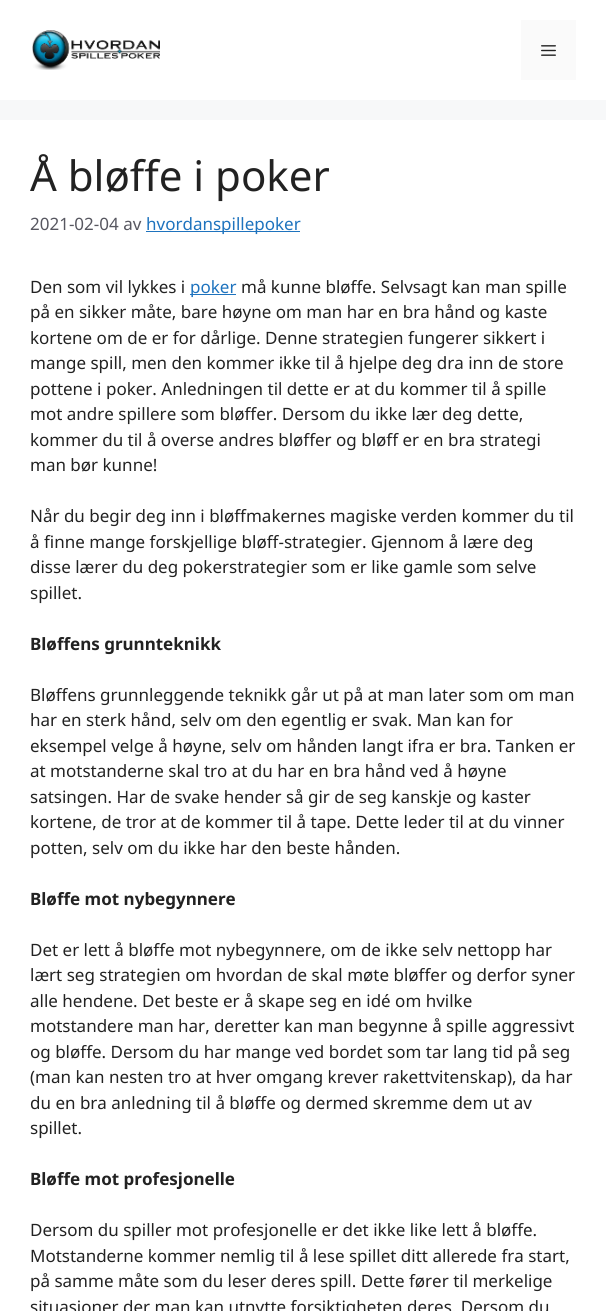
#include <cairo.h>
#include <math.h>
#include <stddef.h>


static void rgb(cairo_t *cr, int r, int g, int b)
{
	cairo_set_source_rgb(cr, r / 255.0, g / 255.0, b / 255.0);
}

static void face(cairo_t *cr, const char *family, double size, int italic, int bold)
{
	cairo_select_font_face(cr, family, italic ? CAIRO_FONT_SLANT_ITALIC : CAIRO_FONT_SLANT_NORMAL,
		bold ? CAIRO_FONT_WEIGHT_BOLD : CAIRO_FONT_WEIGHT_NORMAL);
	cairo_set_font_size(cr, size);
}

static void label(cairo_t *cr, double x, double y, const char *s)
{
	cairo_move_to(cr, x, y);
	cairo_show_text(cr, s);
}

static void rect(cairo_t *cr, double x, double y, double w, double h)
{
	cairo_rectangle(cr, x, y, w, h);
	cairo_fill(cr);
}

static void image(cairo_t *cr, const char *path, double x, double y, double w, double h)
{
	cairo_surface_t *image = cairo_image_surface_create_from_png(path);
	cairo_save(cr);
	cairo_set_source_surface(cr, image, x, y);
	cairo_rectangle(cr, x, y, w, h);
	cairo_fill(cr);
	cairo_restore(cr);
	cairo_surface_destroy(image);
}

static void draw(cairo_t *cr) {
	rgb(cr, 247, 248, 249);
	cairo_paint(cr);
	rgb(cr, 255, 255, 255);
	rect(cr, 0, 0, 606, 100);
	image(cr, "image0.png", 32, 30, 128, 40);
	rgb(cr, 250, 250, 250);
	rect(cr, 521, 20, 55, 60);
	image(cr, "image1.png", 541, 45, 15, 11);
	rgb(cr, 255, 255, 255);
	rect(cr, 0, 120, 606, 1191);
	face(cr, "Noto Sans", 42, 0, 0);
	rgb(cr, 34, 34, 34);
	label(cr, 30, 191, "Å bløffe i poker");
	face(cr, "Noto Sans", 17, 0, 0);
	rgb(cr, 87, 87, 96);
	label(cr, 30, 230, "2021-02-04 av");
	rgb(cr, 30, 115, 190);
	rect(cr, 146, 231, 154, 1);
	label(cr, 146, 230, "hvordanspillepoker");
	rgb(cr, 34, 34, 34);
	label(cr, 30, 293, "Den som vil lykkes i");
	rgb(cr, 30, 115, 190);
	rect(cr, 190, 294, 46, 1);
	label(cr, 190, 293, "poker");
	rgb(cr, 34, 34, 34);
	label(cr, 241, 293, "må kunne bløffe. Selvsagt kan man spille");
	label(cr, 30, 318, "på en sikker måte, bare høyne om man har en bra hånd og kaste");
	label(cr, 30, 344, "kortene om de er for dårlige. Denne strategien fungerer sikkert i");
	label(cr, 30, 369, "mange spill, men den kommer ikke til å hjelpe deg dra inn de store");
	label(cr, 30, 395, "pottene i poker. Anledningen til dette er at du kommer til å spille");
	label(cr, 30, 420, "mot andre spillere som bløffer. Dersom du ikke lær deg dette,");
	label(cr, 30, 446, "kommer du til å overse andres bløffer og bløff er en bra strategi");
	label(cr, 30, 471, "man bør kunne!");
	label(cr, 30, 522, "Når du begir deg inn i bløffmakernes magiske verden kommer du til");
	label(cr, 30, 548, "å finne mange forskjellige bløff-strategier. Gjennom å lære deg");
	label(cr, 30, 573, "disse lærer du deg pokerstrategier som er like gamle som selve");
	label(cr, 30, 599, "spillet.");
	face(cr, "Noto Sans", 17, 0, 1);
	label(cr, 30, 650, "Bløffens grunnteknikk");
	face(cr, "Noto Sans", 17, 0, 0);
	label(cr, 30, 701, "Bløffens grunnleggende teknikk går ut på at man later som om man");
	label(cr, 30, 726, "har en sterk hånd, selv om den egentlig er svak. Man kan for");
	label(cr, 30, 752, "eksempel velge å høyne, selv om hånden langt ifra er bra. Tanken er");
	label(cr, 30, 777, "at motstanderne skal tro at du har en bra hånd ved å høyne");
	label(cr, 30, 803, "satsingen. Har de svake hender så gir de seg kanskje og kaster");
	label(cr, 30, 828, "kortene, de tror at de kommer til å tape. Dette leder til at du vinner");
	label(cr, 30, 854, "potten, selv om du ikke har den beste hånden.");
	face(cr, "Noto Sans", 17, 0, 1);
	label(cr, 30, 905, "Bløffe mot nybegynnere");
	face(cr, "Noto Sans", 17, 0, 0);
	label(cr, 30, 956, "Det er lett å bløffe mot nybegynnere, om de ikke selv nettopp har");
	label(cr, 30, 981, "lært seg strategien om hvordan de skal møte bløffer og derfor syner");
	label(cr, 30, 1007, "alle hendene. Det beste er å skape seg en idé om hvilke");
	label(cr, 30, 1032, "motstandere man har, deretter kan man begynne å spille aggressivt");
	label(cr, 30, 1058, "og bløffe. Dersom du har mange ved bordet som tar lang tid på seg");
	label(cr, 30, 1083, "(man kan nesten tro at hver omgang krever rakettvitenskap), da har");
	label(cr, 30, 1109, "du en bra anledning til å bløffe og dermed skremme dem ut av");
	label(cr, 30, 1134, "spillet.");
	face(cr, "Noto Sans", 17, 0, 1);
	label(cr, 30, 1185, "Bløffe mot profesjonelle");
	face(cr, "Noto Sans", 17, 0, 0);
	label(cr, 30, 1236, "Dersom du spiller mot profesjonelle er det ikke like lett å bløffe.");
	label(cr, 30, 1262, "Motstanderne kommer nemlig til å lese spillet ditt allerede fra start,");
	label(cr, 30, 1287, "på samme måte som du leser deres spill. Dette fører til merkelige");
	label(cr, 30, 1313, "situasjoner der man kan utnytte forsiktigheten deres. Dersom du");
}

int main(void) {
	cairo_surface_t *surface = cairo_image_surface_create(CAIRO_FORMAT_RGB24, 606, 1311);
	cairo_t *cr = cairo_create(surface);
	cairo_font_options_t *options = cairo_font_options_create();
	cairo_font_options_set_hint_metrics(options, CAIRO_HINT_METRICS_OFF);
	cairo_font_options_set_hint_style(options, CAIRO_HINT_STYLE_NONE);
	cairo_set_font_options(cr, options);
	cairo_set_miter_limit(cr, 4);
	draw(cr);
	cairo_surface_write_to_png(surface, "render.png");
	cairo_font_options_destroy(options);
	cairo_destroy(cr);
	cairo_surface_destroy(surface);
	return 0;
}
